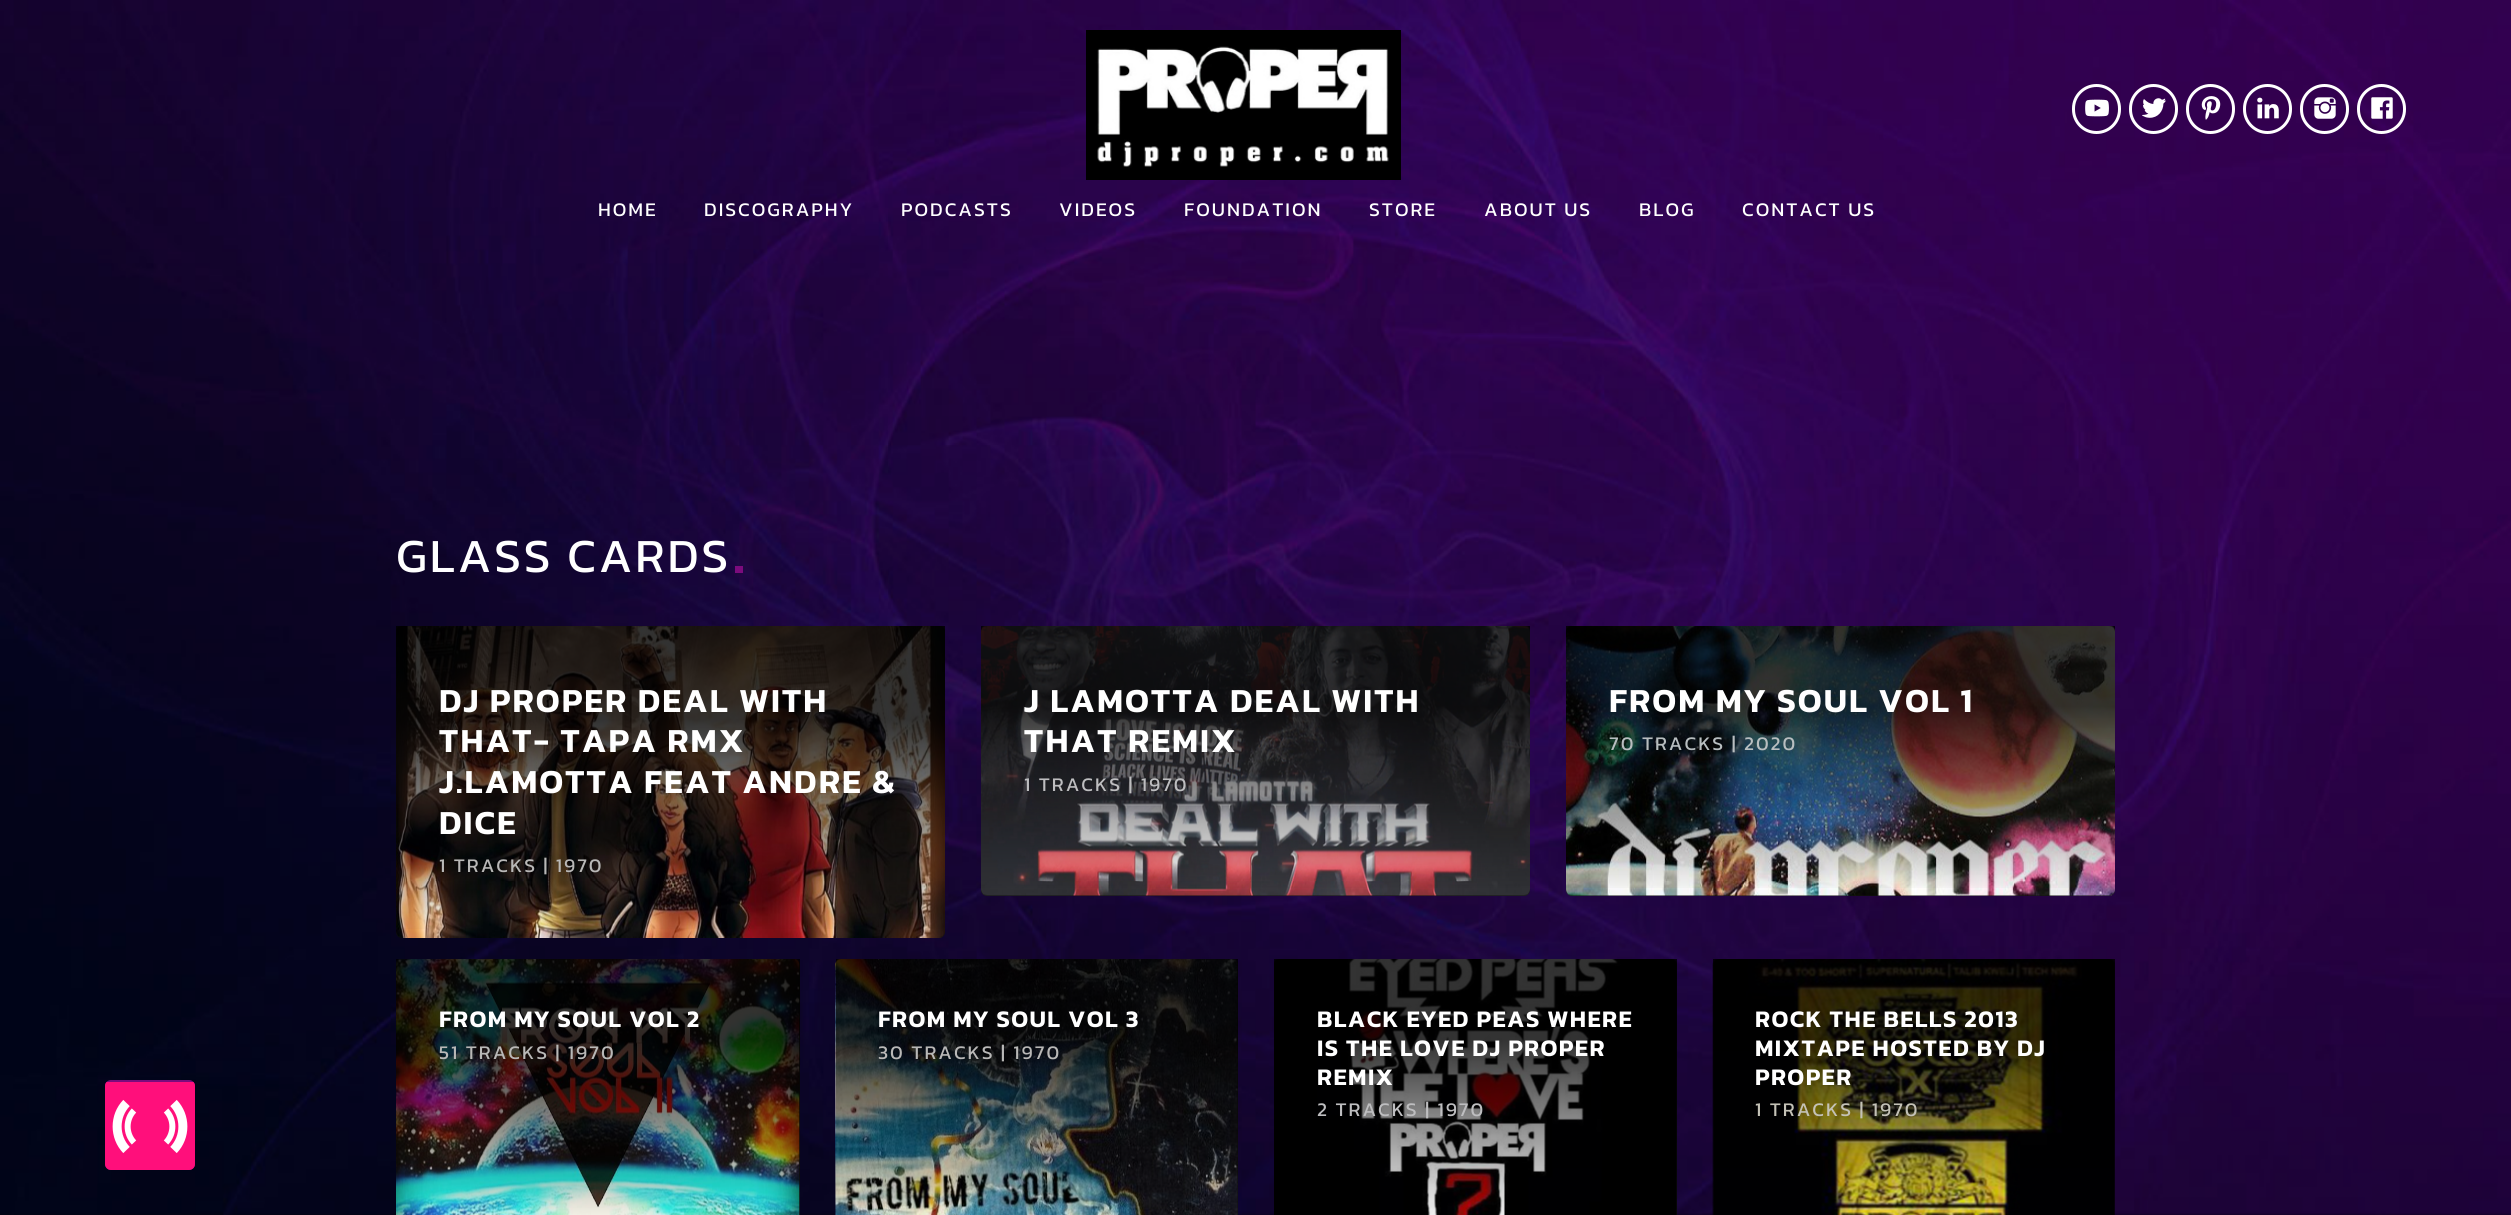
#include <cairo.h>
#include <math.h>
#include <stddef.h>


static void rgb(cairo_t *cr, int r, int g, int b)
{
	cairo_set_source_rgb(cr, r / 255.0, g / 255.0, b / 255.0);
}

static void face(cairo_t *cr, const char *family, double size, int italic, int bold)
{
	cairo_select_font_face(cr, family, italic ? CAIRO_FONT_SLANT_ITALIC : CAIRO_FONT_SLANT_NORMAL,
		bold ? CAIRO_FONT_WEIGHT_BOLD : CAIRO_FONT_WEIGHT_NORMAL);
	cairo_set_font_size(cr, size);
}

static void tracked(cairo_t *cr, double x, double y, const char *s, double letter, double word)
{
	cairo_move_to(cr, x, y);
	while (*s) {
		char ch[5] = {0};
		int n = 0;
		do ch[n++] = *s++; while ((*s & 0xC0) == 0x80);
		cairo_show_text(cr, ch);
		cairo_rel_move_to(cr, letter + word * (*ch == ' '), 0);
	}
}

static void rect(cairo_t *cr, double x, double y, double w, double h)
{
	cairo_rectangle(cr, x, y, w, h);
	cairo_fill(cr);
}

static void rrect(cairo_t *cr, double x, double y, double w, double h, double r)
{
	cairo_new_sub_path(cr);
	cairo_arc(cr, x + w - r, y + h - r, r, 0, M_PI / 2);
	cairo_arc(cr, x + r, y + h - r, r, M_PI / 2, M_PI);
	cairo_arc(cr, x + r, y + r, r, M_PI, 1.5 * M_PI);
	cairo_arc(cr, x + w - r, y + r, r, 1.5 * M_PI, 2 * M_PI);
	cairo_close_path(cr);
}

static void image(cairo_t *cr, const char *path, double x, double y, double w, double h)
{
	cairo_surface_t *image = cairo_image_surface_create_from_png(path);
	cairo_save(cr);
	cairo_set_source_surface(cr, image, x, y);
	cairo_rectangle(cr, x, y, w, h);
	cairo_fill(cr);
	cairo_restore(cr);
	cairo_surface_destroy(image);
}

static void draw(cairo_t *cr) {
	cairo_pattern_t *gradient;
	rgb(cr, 255, 255, 255);
	cairo_paint(cr);
	image(cr, "image15.png", 0, 1213, 2511, 2);
	image(cr, "image7.png", 0, 0, 2511, 1215);
	rgb(cr, 123, 11, 125);
	rrect(cr, 105, 1080, 90, 90, 6);
	cairo_fill(cr);
	cairo_save(cr);
	rrect(cr, 105, 1080, 90, 90, 6);
	cairo_clip(cr);
	cairo_new_path(cr);
	cairo_move_to(cr, 111, 1080);
	cairo_line_to(cr, 195, 1080);
	cairo_line_to(cr, 195, 1170);
	cairo_line_to(cr, 111, 1170);
	cairo_curve_to(cr, 107.5, 1170, 105, 1167.5, 105, 1164);
	cairo_line_to(cr, 105, 1086);
	cairo_curve_to(cr, 105, 1082.5, 107.5, 1080, 111, 1080);
	cairo_close_path(cr);
	cairo_clip(cr);
	rgb(cr, 255, 15, 123);
	cairo_new_path(cr);
	cairo_move_to(cr, 105, 1082);
	cairo_line_to(cr, 195, 1082);
	cairo_line_to(cr, 195, 1164);
	cairo_curve_to(cr, 195, 1167.5, 192.5, 1170, 189, 1170);
	cairo_line_to(cr, 111, 1170);
	cairo_curve_to(cr, 107.5, 1170, 105, 1167.5, 105, 1164);
	cairo_close_path(cr);
	cairo_fill(cr);
	cairo_restore(cr);
	cairo_new_path(cr);
	cairo_move_to(cr, 166, 1110.5);
	cairo_curve_to(cr, 174.5, 1119.5, 174.5, 1133.5, 166, 1142.5);
	cairo_move_to(cr, 134, 1142.5);
	cairo_curve_to(cr, 125.5, 1133.5, 125.5, 1119.5, 134, 1110.5);
	rgb(cr, 255, 255, 255);
	cairo_set_line_width(cr, 6);
	cairo_stroke(cr);
	cairo_new_path(cr);
	cairo_move_to(cr, 173.5, 1103);
	cairo_curve_to(cr, 186, 1116, 186, 1137, 173.5, 1150);
	cairo_set_line_width(cr, 9);
	cairo_stroke(cr);
	cairo_new_path(cr);
	cairo_move_to(cr, 126.5, 1150);
	cairo_curve_to(cr, 114, 1137, 114, 1116, 126.5, 1103);
	cairo_stroke(cr);
	image(cr, "image0.png", 1086, 30, 315, 150);
	rrect(cr, 2073.5, 85.5, 46, 47, 23);
	cairo_set_line_width(cr, 3);
	cairo_stroke(cr);
	image(cr, "image1.png", 2085, 99, 24, 18);
	rrect(cr, 2130.5, 85.5, 46, 47, 23);
	cairo_stroke(cr);
	image(cr, "image2.png", 2142, 98, 24, 20);
	rrect(cr, 2187.5, 85.5, 46, 47, 23);
	cairo_stroke(cr);
	image(cr, "image3.png", 2201, 96, 20, 24);
	rrect(cr, 2244.5, 85.5, 46, 47, 23);
	cairo_stroke(cr);
	image(cr, "image4.png", 2257, 97, 22, 22);
	rrect(cr, 2301.5, 85.5, 46, 47, 23);
	cairo_stroke(cr);
	image(cr, "image5.png", 2314, 97, 22, 22);
	rrect(cr, 2358.5, 85.5, 46, 47, 23);
	cairo_stroke(cr);
	image(cr, "image6.png", 2371, 97, 22, 22);
	face(cr, "Kanit", 19.5, 0, 0);
	tracked(cr, 598, 216, "HOME", 2, 0);
	tracked(cr, 704, 216, "DISCOGRAPHY", 2, 0);
	tracked(cr, 901, 216, "PODCASTS", 2, 0);
	tracked(cr, 1059, 216, "VIDEOS", 2, 0);
	tracked(cr, 1184, 216, "FOUNDATION", 2, 0);
	tracked(cr, 1369, 216, "STORE", 2, 0);
	tracked(cr, 1484, 216, "ABOUT US", 2, 0);
	tracked(cr, 1639, 216, "BLOG", 2, 0);
	tracked(cr, 1742, 216, "CONTACT US", 2, 0);
	face(cr, "Kanit", 48, 0, 0);
	tracked(cr, 396, 572, "GLASS CARDS", 2.9, 0);
	rgb(cr, 123, 11, 125);
	rect(cr, 735, 566, 8, 7);
	rgb(cr, 18, 18, 18);
	rrect(cr, 396, 626, 549, 312, 6);
	cairo_fill(cr);
	image(cr, "image8.png", 396, 626, 549, 312);
	gradient = cairo_pattern_create_linear(671, 626, 671, 938);
	cairo_pattern_add_color_stop_rgba(gradient, 0, 0, 0, 0, 0.8);
	cairo_pattern_add_color_stop_rgba(gradient, 0.3, 0, 0, 0, 0.8);
	cairo_pattern_add_color_stop_rgba(gradient, 0.99, 0, 0, 0, 0);
	cairo_pattern_add_color_stop_rgba(gradient, 1, 0, 0, 0, 0);
	cairo_set_source(cr, gradient);
	cairo_pattern_destroy(gradient);
	rect(cr, 396, 626, 549, 303);
	face(cr, "Kanit SemiBold", 34, 0, 0);
	rgb(cr, 255, 255, 255);
	tracked(cr, 439, 712, "DJ PROPER DEAL WITH", 2, 0);
	tracked(cr, 439, 752, "THAT- TAPA RMX", 2, 0);
	tracked(cr, 439, 793, "J.LAMOTTA FEAT ANDRE &", 2, 0);
	tracked(cr, 439, 834, "DICE", 2, 0);
	face(cr, "Kanit", 19.5, 0, 0);
	rgb(cr, 185, 184, 183);
	tracked(cr, 439, 872, "1 TRACKS | 1970", 2, 0);
	rgb(cr, 18, 18, 18);
	rrect(cr, 981, 626, 549, 270, 6);
	cairo_fill(cr);
	image(cr, "image9.png", 981, 626, 549, 270);
	gradient = cairo_pattern_create_linear(1256, 626, 1256, 896);
	cairo_pattern_add_color_stop_rgba(gradient, 0, 0, 0, 0, 0.8);
	cairo_pattern_add_color_stop_rgba(gradient, 0.3, 0, 0, 0, 0.8);
	cairo_pattern_add_color_stop_rgba(gradient, 0.99, 0, 0, 0, 0);
	cairo_pattern_add_color_stop_rgba(gradient, 1, 0, 0, 0, 0);
	cairo_set_source(cr, gradient);
	cairo_pattern_destroy(gradient);
	rect(cr, 981, 626, 549, 262);
	face(cr, "Kanit SemiBold", 34, 0, 0);
	rgb(cr, 255, 255, 255);
	tracked(cr, 1024, 712, "J LAMOTTA DEAL WITH", 2, 0);
	tracked(cr, 1024, 752, "THAT REMIX", 2, 0);
	face(cr, "Kanit", 19.5, 0, 0);
	rgb(cr, 190, 190, 192);
	tracked(cr, 1024, 791, "1 TRACKS | 1970", 2, 0);
	rgb(cr, 18, 18, 18);
	rrect(cr, 1566, 626, 549, 270, 6);
	cairo_fill(cr);
	image(cr, "image10.png", 1566, 626, 549, 270);
	gradient = cairo_pattern_create_linear(1841, 626, 1841, 896);
	cairo_pattern_add_color_stop_rgba(gradient, 0, 0, 0, 0, 0.8);
	cairo_pattern_add_color_stop_rgba(gradient, 0.3, 0, 0, 0, 0.8);
	cairo_pattern_add_color_stop_rgba(gradient, 0.99, 0, 0, 0, 0);
	cairo_pattern_add_color_stop_rgba(gradient, 1, 0, 0, 0, 0);
	cairo_set_source(cr, gradient);
	cairo_pattern_destroy(gradient);
	rect(cr, 1566, 626, 549, 262);
	face(cr, "Kanit SemiBold", 34, 0, 0);
	rgb(cr, 255, 255, 255);
	tracked(cr, 1609, 712, "FROM MY SOUL VOL 1", 2, 0);
	face(cr, "Kanit", 19.5, 0, 0);
	rgb(cr, 184, 190, 192);
	tracked(cr, 1609, 750, "70 TRACKS | 2020", 2, 0);
	rgb(cr, 18, 18, 18);
	rrect(cr, 396, 959, 404, 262, 6);
	cairo_fill(cr);
	image(cr, "image11.png", 396, 959, 404, 256);
	gradient = cairo_pattern_create_linear(598, 959, 598, 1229);
	cairo_pattern_add_color_stop_rgba(gradient, 0, 0, 0, 0, 0.8);
	cairo_pattern_add_color_stop_rgba(gradient, 0.3, 0, 0, 0, 0.8);
	cairo_pattern_add_color_stop_rgba(gradient, 0.99, 0, 0, 0, 0);
	cairo_pattern_add_color_stop_rgba(gradient, 1, 0, 0, 0, 0);
	cairo_set_source(cr, gradient);
	cairo_pattern_destroy(gradient);
	rect(cr, 396, 959, 404, 256);
	face(cr, "Kanit SemiBold", 24, 0, 0);
	rgb(cr, 255, 255, 255);
	tracked(cr, 439, 1027, "FROM MY SOUL VOL 2", 1.4, 0);
	face(cr, "Kanit", 19.5, 0, 0);
	rgb(cr, 185, 184, 183);
	tracked(cr, 439, 1059, "51 TRACKS | 1970", 2, 0);
	rgb(cr, 18, 18, 18);
	rrect(cr, 836, 959, 402, 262, 6);
	cairo_fill(cr);
	image(cr, "image12.png", 835, 959, 403, 256);
	gradient = cairo_pattern_create_linear(1037, 959, 1037, 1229);
	cairo_pattern_add_color_stop_rgba(gradient, 0, 0, 0, 0, 0.8);
	cairo_pattern_add_color_stop_rgba(gradient, 0.3, 0, 0, 0, 0.8);
	cairo_pattern_add_color_stop_rgba(gradient, 0.99, 0, 0, 0, 0);
	cairo_pattern_add_color_stop_rgba(gradient, 1, 0, 0, 0, 0);
	cairo_set_source(cr, gradient);
	cairo_pattern_destroy(gradient);
	rect(cr, 836, 959, 402, 256);
	face(cr, "Kanit SemiBold", 24, 0, 0);
	rgb(cr, 255, 255, 255);
	tracked(cr, 878, 1027, "FROM MY SOUL VOL 3", 1.4, 0);
	face(cr, "Kanit", 19.5, 0, 0);
	rgb(cr, 185, 184, 183);
	tracked(cr, 878, 1059, "30 TRACKS | 1970", 2, 0);
	rgb(cr, 18, 18, 18);
	rrect(cr, 1274, 959, 403, 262, 6);
	cairo_fill(cr);
	image(cr, "image13.png", 1274, 959, 403, 256);
	gradient = cairo_pattern_create_linear(1475, 959, 1475, 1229);
	cairo_pattern_add_color_stop_rgba(gradient, 0, 0, 0, 0, 0.8);
	cairo_pattern_add_color_stop_rgba(gradient, 0.3, 0, 0, 0, 0.8);
	cairo_pattern_add_color_stop_rgba(gradient, 0.99, 0, 0, 0, 0);
	cairo_pattern_add_color_stop_rgba(gradient, 1, 0, 0, 0, 0);
	cairo_set_source(cr, gradient);
	cairo_pattern_destroy(gradient);
	rect(cr, 1274, 959, 403, 256);
	face(cr, "Kanit SemiBold", 24, 0, 0);
	rgb(cr, 255, 255, 255);
	tracked(cr, 1317, 1027, "BLACK EYED PEAS WHERE", 1.4, 0);
	tracked(cr, 1317, 1056, "IS THE LOVE DJ PROPER", 1.4, 0);
	tracked(cr, 1317, 1085, "REMIX", 1.4, 0);
	face(cr, "Kanit", 19.5, 0, 0);
	rgb(cr, 190, 190, 192);
	tracked(cr, 1317, 1116, "2 TRACKS | 1970", 2, 0);
	image(cr, "image14.png", 1712, 959, 403, 256);
	gradient = cairo_pattern_create_linear(1914, 959, 1914, 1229);
	cairo_pattern_add_color_stop_rgba(gradient, 0, 0, 0, 0, 0.8);
	cairo_pattern_add_color_stop_rgba(gradient, 0.3, 0, 0, 0, 0.8);
	cairo_pattern_add_color_stop_rgba(gradient, 0.99, 0, 0, 0, 0);
	cairo_pattern_add_color_stop_rgba(gradient, 1, 0, 0, 0, 0);
	cairo_set_source(cr, gradient);
	cairo_pattern_destroy(gradient);
	rect(cr, 1713, 959, 402, 256);
	face(cr, "Kanit SemiBold", 24, 0, 0);
	rgb(cr, 255, 255, 255);
	tracked(cr, 1755, 1027, "ROCK THE BELLS 2013", 1.4, 0);
	tracked(cr, 1755, 1056, "MIXTAPE HOSTED BY DJ", 1.4, 0);
	tracked(cr, 1755, 1085, "PROPER", 1.4, 0);
	face(cr, "Kanit", 19.5, 0, 0);
	rgb(cr, 196, 194, 183);
	tracked(cr, 1755, 1116, "1 TRACKS | 1970", 2, 0);
}

int main(void) {
	cairo_surface_t *surface = cairo_image_surface_create(CAIRO_FORMAT_RGB24, 2511, 1215);
	cairo_t *cr = cairo_create(surface);
	cairo_font_options_t *options = cairo_font_options_create();
	cairo_font_options_set_hint_metrics(options, CAIRO_HINT_METRICS_OFF);
	cairo_font_options_set_hint_style(options, CAIRO_HINT_STYLE_NONE);
	cairo_set_font_options(cr, options);
	cairo_set_miter_limit(cr, 4);
	draw(cr);
	cairo_surface_write_to_png(surface, "render.png");
	cairo_font_options_destroy(options);
	cairo_destroy(cr);
	cairo_surface_destroy(surface);
	return 0;
}
